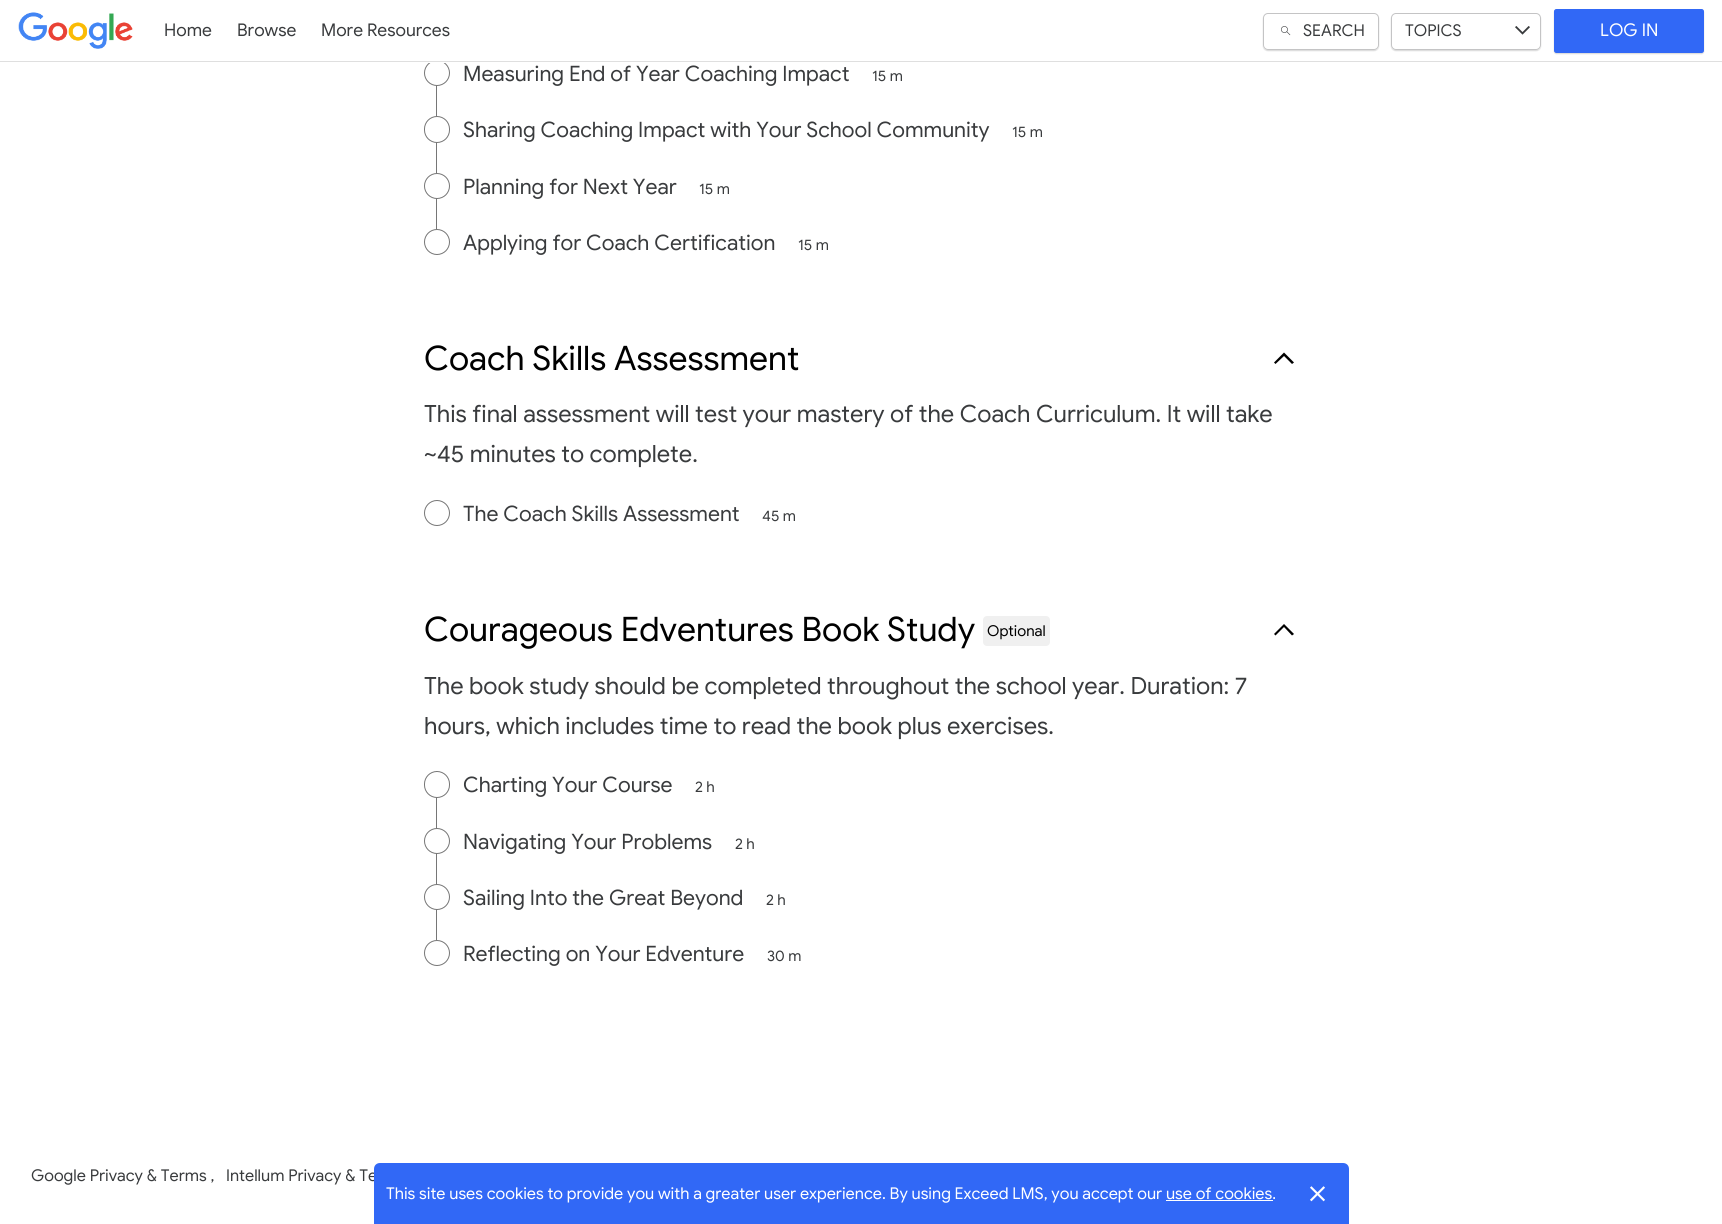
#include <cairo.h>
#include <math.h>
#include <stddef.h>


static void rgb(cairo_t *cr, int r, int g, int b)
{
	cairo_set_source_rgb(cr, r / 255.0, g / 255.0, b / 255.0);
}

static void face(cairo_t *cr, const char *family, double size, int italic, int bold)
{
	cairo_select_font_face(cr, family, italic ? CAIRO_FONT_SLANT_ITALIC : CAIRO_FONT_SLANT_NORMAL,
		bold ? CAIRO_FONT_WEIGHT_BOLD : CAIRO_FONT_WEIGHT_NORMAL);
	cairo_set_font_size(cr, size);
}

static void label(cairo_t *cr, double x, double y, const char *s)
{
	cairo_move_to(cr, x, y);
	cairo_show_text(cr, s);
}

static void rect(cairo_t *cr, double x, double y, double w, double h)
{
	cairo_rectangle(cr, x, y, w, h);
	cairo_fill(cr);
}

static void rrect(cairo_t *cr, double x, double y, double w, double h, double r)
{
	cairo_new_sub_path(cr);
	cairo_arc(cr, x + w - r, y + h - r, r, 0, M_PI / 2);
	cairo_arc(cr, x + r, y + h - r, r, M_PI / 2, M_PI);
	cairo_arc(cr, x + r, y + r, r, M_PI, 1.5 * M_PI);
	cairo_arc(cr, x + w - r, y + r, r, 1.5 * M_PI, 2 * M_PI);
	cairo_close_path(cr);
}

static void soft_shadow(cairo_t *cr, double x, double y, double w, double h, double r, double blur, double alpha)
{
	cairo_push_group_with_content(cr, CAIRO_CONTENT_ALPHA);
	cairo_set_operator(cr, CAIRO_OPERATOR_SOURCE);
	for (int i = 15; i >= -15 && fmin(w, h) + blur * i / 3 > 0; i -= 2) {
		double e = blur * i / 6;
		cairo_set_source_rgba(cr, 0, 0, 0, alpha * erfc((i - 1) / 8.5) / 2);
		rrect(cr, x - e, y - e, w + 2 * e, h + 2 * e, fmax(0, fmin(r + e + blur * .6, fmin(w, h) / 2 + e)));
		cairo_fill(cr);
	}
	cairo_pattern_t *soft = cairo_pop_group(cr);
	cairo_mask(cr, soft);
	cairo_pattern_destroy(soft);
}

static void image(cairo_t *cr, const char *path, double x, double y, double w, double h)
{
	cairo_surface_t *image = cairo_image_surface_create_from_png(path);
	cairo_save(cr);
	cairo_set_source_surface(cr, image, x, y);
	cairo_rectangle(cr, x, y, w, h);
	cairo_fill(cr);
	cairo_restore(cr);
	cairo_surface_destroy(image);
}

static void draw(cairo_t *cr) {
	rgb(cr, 255, 255, 255);
	cairo_paint(cr);
	rgb(cr, 118, 118, 118);
	rect(cr, 436, 85, 1, 144);
	rgb(cr, 255, 255, 255);
	cairo_arc(cr, 437, 73, 12.5, 0, 2 * M_PI);
	cairo_fill_preserve(cr);
	rgb(cr, 118, 118, 118);
	cairo_set_line_width(cr, 1);
	cairo_stroke(cr);
	rgb(cr, 255, 255, 255);
	rect(cr, 428, 60, 18, 3);
	rgb(cr, 223, 223, 223);
	rect(cr, 0, 61, 1722, 1);
	image(cr, "image0.png", 18, 12, 115, 37);
	face(cr, "Google Sans", 17.5, 0, 0);
	rgb(cr, 57, 59, 61);
	label(cr, 164, 36, "Home");
	label(cr, 237, 36, "Browse");
	label(cr, 321, 36, "More Resources");
	cairo_save(cr);
	cairo_set_fill_rule(cr, CAIRO_FILL_RULE_EVEN_ODD);
	cairo_new_path(cr);
	cairo_move_to(cr, 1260, 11);
	cairo_line_to(cr, 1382, 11);
	cairo_line_to(cr, 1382, 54);
	cairo_line_to(cr, 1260, 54);
	cairo_close_path(cr);
	cairo_move_to(cr, 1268, 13);
	cairo_line_to(cr, 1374, 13);
	cairo_curve_to(cr, 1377, 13, 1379, 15, 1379, 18);
	cairo_line_to(cr, 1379, 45);
	cairo_curve_to(cr, 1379, 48, 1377, 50, 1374, 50);
	cairo_line_to(cr, 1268, 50);
	cairo_curve_to(cr, 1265, 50, 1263, 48, 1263, 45);
	cairo_line_to(cr, 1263, 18);
	cairo_curve_to(cr, 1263, 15, 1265, 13, 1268, 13);
	cairo_close_path(cr);
	cairo_clip(cr);
	rgb(cr, 0, 0, 0);
	soft_shadow(cr, 1263, 14, 116, 37, 5, 0.5, 0.15);
	cairo_restore(cr);
	rrect(cr, 1263.5, 13.5, 115, 36, 4.5);
	cairo_set_source_rgba(cr, 0.224, 0.231, 0.239, 0.3);
	cairo_stroke(cr);
	image(cr, "image1.png", 1281, 26, 10, 10);
	face(cr, "Google Sans", 16.25, 0, 0);
	rgb(cr, 57, 59, 61);
	label(cr, 1303, 36, "SEARCH");
	cairo_save(cr);
	cairo_set_fill_rule(cr, CAIRO_FILL_RULE_EVEN_ODD);
	cairo_new_path(cr);
	cairo_move_to(cr, 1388, 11);
	cairo_line_to(cr, 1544, 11);
	cairo_line_to(cr, 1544, 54);
	cairo_line_to(cr, 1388, 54);
	cairo_close_path(cr);
	cairo_move_to(cr, 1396, 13);
	cairo_line_to(cr, 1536, 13);
	cairo_curve_to(cr, 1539, 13, 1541, 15, 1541, 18);
	cairo_line_to(cr, 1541, 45);
	cairo_curve_to(cr, 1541, 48, 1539, 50, 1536, 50);
	cairo_line_to(cr, 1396, 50);
	cairo_curve_to(cr, 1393, 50, 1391, 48, 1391, 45);
	cairo_line_to(cr, 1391, 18);
	cairo_curve_to(cr, 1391, 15, 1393, 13, 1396, 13);
	cairo_close_path(cr);
	cairo_clip(cr);
	rgb(cr, 0, 0, 0);
	soft_shadow(cr, 1391, 14, 150, 37, 5, 0.5, 0.15);
	cairo_restore(cr);
	rrect(cr, 1391.5, 13.5, 149, 36, 4.5);
	cairo_set_source_rgba(cr, 0.224, 0.231, 0.239, 0.3);
	cairo_stroke(cr);
	rgb(cr, 57, 59, 61);
	label(cr, 1405, 36, "TOPICS");
	image(cr, "image2.png", 1515, 26, 15, 9);
	rgb(cr, 0, 0, 0);
	soft_shadow(cr, 1554, 10, 150, 44, 2.5, 0.5, 0.15);
	rgb(cr, 49, 104, 246);
	rrect(cr, 1554.5, 9.5, 149, 43, 2);
	cairo_fill_preserve(cr);
	cairo_stroke(cr);
	face(cr, "Google Sans", 17.5, 0, 0);
	rgb(cr, 255, 255, 255);
	label(cr, 1600, 36, "LOG IN");
	face(cr, "Google Sans", 21.25, 0, 0);
	rgb(cr, 57, 59, 61);
	label(cr, 463, 81, "Measuring End of Year Coaching Impact");
	face(cr, "Google Sans", 15, 0, 0);
	label(cr, 872, 81, "15 m");
	rgb(cr, 255, 255, 255);
	rrect(cr, 424.5, 116.5, 25, 26, 12.5);
	cairo_fill_preserve(cr);
	rgb(cr, 118, 118, 118);
	cairo_stroke(cr);
	face(cr, "Google Sans", 21.25, 0, 0);
	rgb(cr, 57, 59, 61);
	label(cr, 463, 137, "Sharing Coaching Impact with Your School Community");
	face(cr, "Google Sans", 15, 0, 0);
	label(cr, 1012, 137, "15 m");
	rgb(cr, 255, 255, 255);
	cairo_new_path(cr);
	cairo_arc(cr, 437, 186, 12.5, 0, 2 * M_PI);
	cairo_fill_preserve(cr);
	rgb(cr, 118, 118, 118);
	cairo_stroke(cr);
	face(cr, "Google Sans", 21.25, 0, 0);
	rgb(cr, 57, 59, 61);
	label(cr, 463, 194, "Planning for Next Year");
	face(cr, "Google Sans", 15, 0, 0);
	label(cr, 699, 194, "15 m");
	cairo_new_path(cr);
	cairo_arc(cr, 437, 242, 12.5, 0, 2 * M_PI);
	rgb(cr, 118, 118, 118);
	cairo_stroke(cr);
	face(cr, "Google Sans", 21.25, 0, 0);
	rgb(cr, 57, 59, 61);
	label(cr, 463, 250, "Applying for Coach Certification");
	face(cr, "Google Sans", 15, 0, 0);
	label(cr, 798, 250, "15 m");
	face(cr, "Google Sans", 33.75, 0, 0);
	rgb(cr, 0, 0, 0);
	label(cr, 424, 370, "Coach Skills Assessment");
	cairo_new_path(cr);
	cairo_move_to(cr, 1292, 364);
	cairo_line_to(cr, 1284, 356);
	cairo_line_to(cr, 1275.5, 364);
	cairo_line_to(cr, 1274, 362.5);
	cairo_line_to(cr, 1284, 352.5);
	cairo_line_to(cr, 1294, 362.5);
	cairo_close_path(cr);
	cairo_fill(cr);
	face(cr, "Google Sans", 23.75, 0, 0);
	rgb(cr, 57, 59, 61);
	label(cr, 424, 422, "This final assessment will test your mastery of the Coach Curriculum. It will take");
	label(cr, 424, 462, "~45 minutes to complete.");
	cairo_new_path(cr);
	cairo_arc(cr, 437, 513, 12.5, 0, 2 * M_PI);
	rgb(cr, 118, 118, 118);
	cairo_stroke(cr);
	face(cr, "Google Sans", 21.25, 0, 0);
	rgb(cr, 57, 59, 61);
	label(cr, 463, 521, "The Coach Skills Assessment");
	face(cr, "Google Sans", 15, 0, 0);
	label(cr, 762, 521, "45 m");
	face(cr, "Google Sans", 33.75, 0, 0);
	rgb(cr, 0, 0, 0);
	label(cr, 424, 641, "Courageous Edventures Book Study");
	rgb(cr, 240, 240, 240);
	rrect(cr, 983, 616, 67, 30, 4);
	cairo_fill(cr);
	face(cr, "Google Sans", 15, 0, 0);
	rgb(cr, 0, 0, 0);
	label(cr, 987, 636, "Optional");
	cairo_new_path(cr);
	cairo_move_to(cr, 1292, 635.5);
	cairo_line_to(cr, 1284, 627);
	cairo_line_to(cr, 1275.5, 635.5);
	cairo_line_to(cr, 1274, 634);
	cairo_line_to(cr, 1284, 624);
	cairo_line_to(cr, 1294, 634);
	cairo_close_path(cr);
	cairo_fill(cr);
	face(cr, "Google Sans", 23.75, 0, 0);
	rgb(cr, 57, 59, 61);
	label(cr, 424, 694, "The book study should be completed throughout the school year. Duration: 7");
	label(cr, 424, 734, "hours, which includes time to read the book plus exercises.");
	rgb(cr, 118, 118, 118);
	rect(cr, 436, 771, 1, 169);
	rgb(cr, 255, 255, 255);
	rrect(cr, 424.5, 771.5, 25, 26, 12.5);
	cairo_fill_preserve(cr);
	rgb(cr, 118, 118, 118);
	cairo_stroke(cr);
	face(cr, "Google Sans", 21.25, 0, 0);
	rgb(cr, 57, 59, 61);
	label(cr, 463, 792, "Charting Your Course");
	face(cr, "Google Sans", 15, 0, 0);
	label(cr, 695, 792, "2 h");
	rgb(cr, 255, 255, 255);
	cairo_new_path(cr);
	cairo_arc(cr, 437, 841, 12.5, 0, 2 * M_PI);
	cairo_fill_preserve(cr);
	rgb(cr, 118, 118, 118);
	cairo_stroke(cr);
	face(cr, "Google Sans", 21.25, 0, 0);
	rgb(cr, 57, 59, 61);
	label(cr, 463, 849, "Navigating Your Problems");
	face(cr, "Google Sans", 15, 0, 0);
	label(cr, 735, 849, "2 h");
	rgb(cr, 255, 255, 255);
	cairo_new_path(cr);
	cairo_arc(cr, 437, 897, 12.5, 0, 2 * M_PI);
	cairo_fill_preserve(cr);
	rgb(cr, 118, 118, 118);
	cairo_stroke(cr);
	face(cr, "Google Sans", 21.25, 0, 0);
	rgb(cr, 57, 59, 61);
	label(cr, 463, 905, "Sailing Into the Great Beyond");
	face(cr, "Google Sans", 15, 0, 0);
	label(cr, 766, 905, "2 h");
	cairo_new_path(cr);
	cairo_arc(cr, 437, 953, 12.5, 0, 2 * M_PI);
	rgb(cr, 118, 118, 118);
	cairo_stroke(cr);
	face(cr, "Google Sans", 21.25, 0, 0);
	rgb(cr, 57, 59, 61);
	label(cr, 463, 961, "Reflecting on Your Edventure");
	face(cr, "Google Sans", 15, 0, 0);
	label(cr, 767, 961, "30 m");
	face(cr, "Google Sans", 16.25, 0, 0);
	label(cr, 31, 1181, "Google Privacy & Terms ,");
	label(cr, 226, 1181, "Intellum Privacy & Te");
	rgb(cr, 49, 104, 246);
	cairo_new_path(cr);
	cairo_move_to(cr, 380, 1163);
	cairo_line_to(cr, 1343, 1163);
	cairo_curve_to(cr, 1346.5, 1163, 1349, 1165.5, 1349, 1169);
	cairo_line_to(cr, 1349, 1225);
	cairo_line_to(cr, 374, 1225);
	cairo_line_to(cr, 374, 1169);
	cairo_curve_to(cr, 374, 1165.5, 376.5, 1163, 380, 1163);
	cairo_close_path(cr);
	cairo_fill(cr);
	rgb(cr, 255, 255, 255);
	label(cr, 386, 1199, "This site uses cookies to provide you with a greater user experience. By using Exceed LMS, you accept our use of cookies.");
	rect(cr, 1166, 1200, 107, 1);
	image(cr, "image3.png", 1310, 1186, 15, 16);
}

int main(void) {
	cairo_surface_t *surface = cairo_image_surface_create(CAIRO_FORMAT_RGB24, 1722, 1224);
	cairo_t *cr = cairo_create(surface);
	cairo_font_options_t *options = cairo_font_options_create();
	cairo_font_options_set_hint_metrics(options, CAIRO_HINT_METRICS_OFF);
	cairo_font_options_set_hint_style(options, CAIRO_HINT_STYLE_NONE);
	cairo_set_font_options(cr, options);
	cairo_set_miter_limit(cr, 4);
	draw(cr);
	cairo_surface_write_to_png(surface, "render.png");
	cairo_font_options_destroy(options);
	cairo_destroy(cr);
	cairo_surface_destroy(surface);
	return 0;
}
